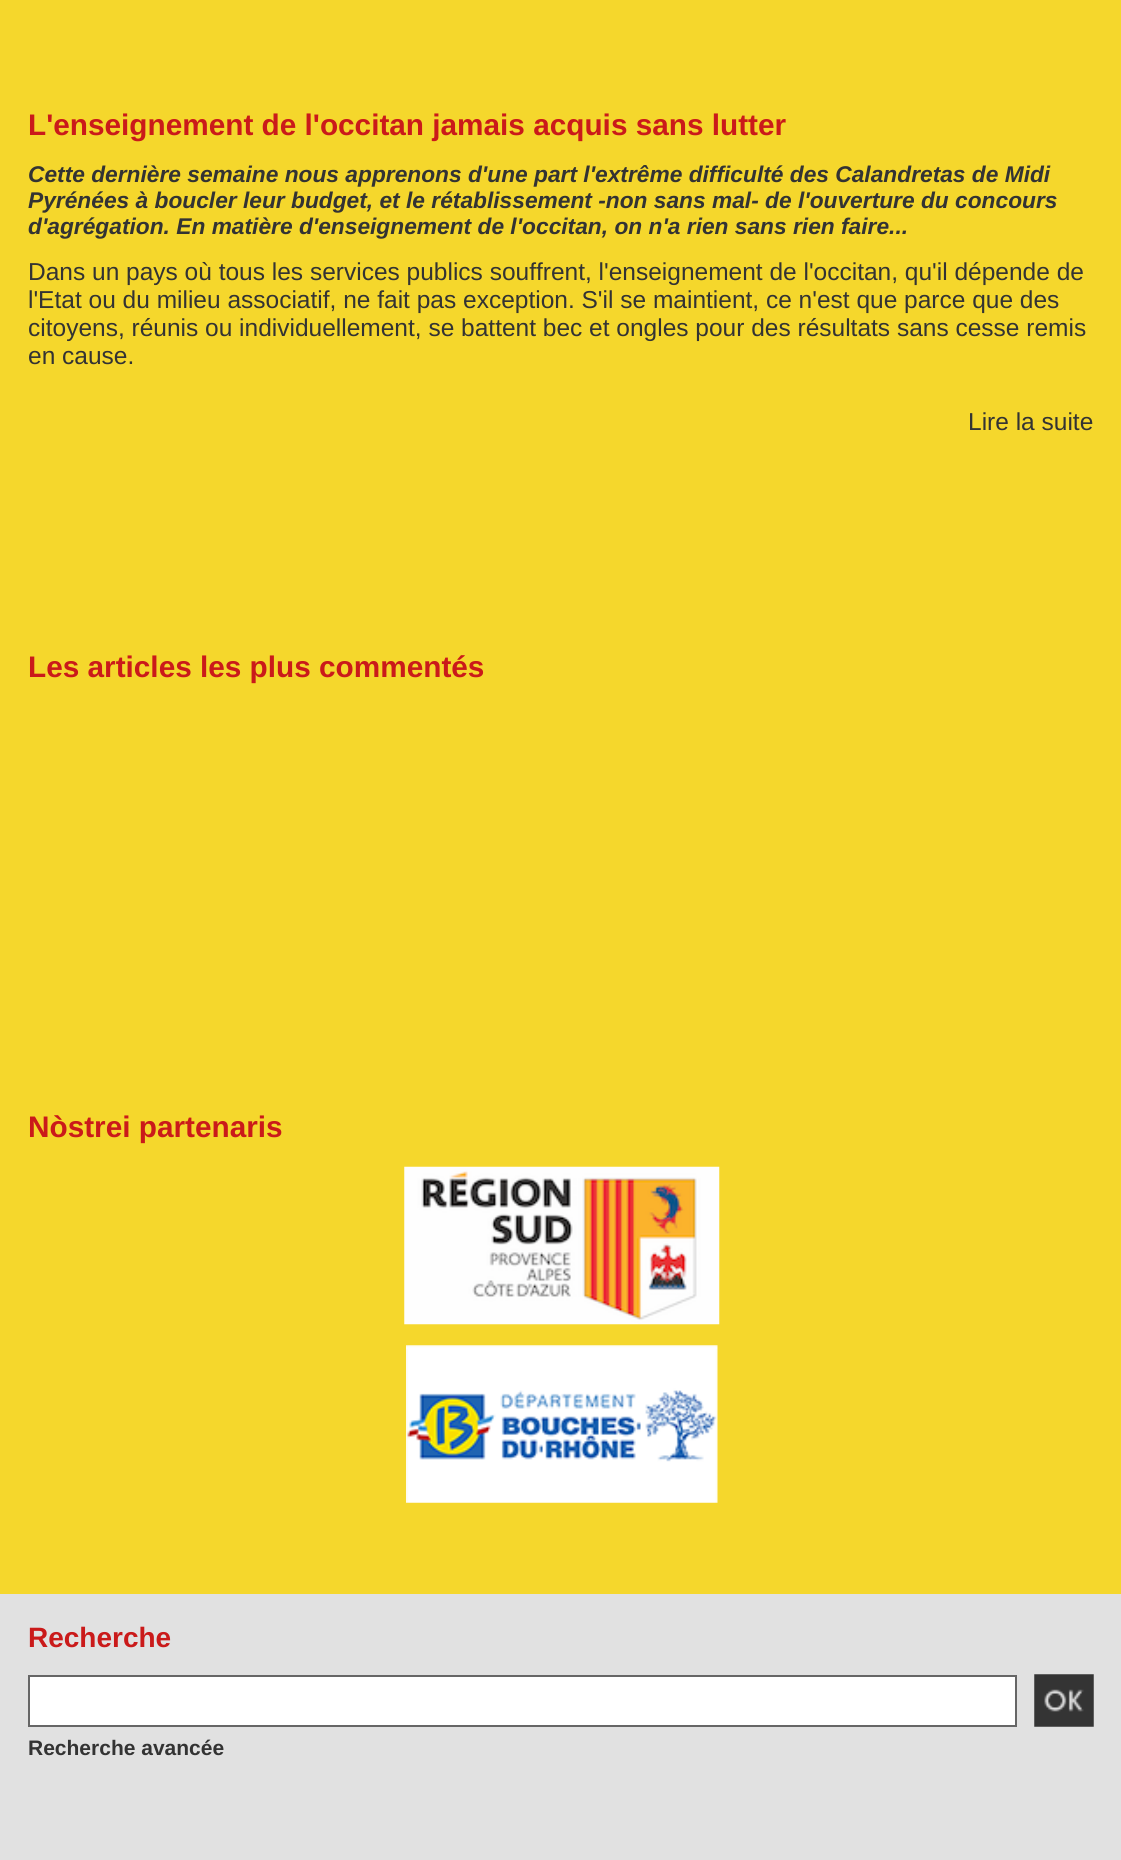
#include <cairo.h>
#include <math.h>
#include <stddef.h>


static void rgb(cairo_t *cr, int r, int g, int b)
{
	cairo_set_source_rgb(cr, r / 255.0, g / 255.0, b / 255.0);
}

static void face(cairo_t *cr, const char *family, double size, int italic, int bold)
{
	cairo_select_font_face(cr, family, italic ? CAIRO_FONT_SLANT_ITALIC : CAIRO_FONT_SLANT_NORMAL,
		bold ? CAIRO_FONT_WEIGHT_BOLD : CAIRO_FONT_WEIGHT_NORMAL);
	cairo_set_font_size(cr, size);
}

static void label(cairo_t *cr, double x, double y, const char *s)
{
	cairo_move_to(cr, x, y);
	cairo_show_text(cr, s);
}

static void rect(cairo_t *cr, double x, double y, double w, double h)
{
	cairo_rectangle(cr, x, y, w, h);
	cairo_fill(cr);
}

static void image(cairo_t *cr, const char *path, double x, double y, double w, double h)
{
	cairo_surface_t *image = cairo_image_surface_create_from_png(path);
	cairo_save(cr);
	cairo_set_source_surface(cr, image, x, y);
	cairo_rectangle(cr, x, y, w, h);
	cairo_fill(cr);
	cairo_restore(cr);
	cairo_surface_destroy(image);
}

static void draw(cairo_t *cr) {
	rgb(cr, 245, 215, 44);
	cairo_paint(cr);
	face(cr, "Liberation Sans", 29.75, 0, 1);
	rgb(cr, 202, 26, 26);
	label(cr, 28, 135, "L'enseignement de l'occitan jamais acquis sans lutter");
	face(cr, "Liberation Sans", 22.75, 1, 1);
	rgb(cr, 51, 51, 51);
	label(cr, 28, 182, "Cette dernière semaine nous apprenons d'une part l'extrême difficulté des Calandretas de Midi");
	label(cr, 28, 208, "Pyrénées à boucler leur budget, et le rétablissement -non sans mal- de l'ouverture du concours");
	label(cr, 28, 234, "d'agrégation. En matière d'enseignement de l'occitan, on n'a rien sans rien faire...");
	face(cr, "Liberation Sans", 24.5, 0, 0);
	label(cr, 28, 280, "Dans un pays où tous les services publics souffrent, l'enseignement de l'occitan, qu'il dépende de");
	label(cr, 28, 308, "l'Etat ou du milieu associatif, ne fait pas exception. S'il se maintient, ce n'est que parce que des");
	label(cr, 28, 336, "citoyens, réunis ou individuellement, se battent bec et ongles pour des résultats sans cesse remis");
	label(cr, 28, 364, "en cause.");
	label(cr, 968, 430, "Lire la suite");
	face(cr, "Liberation Sans", 29.75, 0, 1);
	rgb(cr, 202, 26, 26);
	label(cr, 28, 677, "Les articles les plus commentés");
	label(cr, 28, 1137, "Nòstrei partenaris");
	image(cr, "image0.png", 404, 1166, 316, 159);
	image(cr, "image1.png", 406, 1345, 312, 158);
	rgb(cr, 225, 225, 225);
	rect(cr, 0, 1594, 1121, 266);
	face(cr, "Liberation Sans", 28, 0, 1);
	rgb(cr, 202, 26, 26);
	label(cr, 28, 1647, "Recherche");
	rgb(cr, 255, 255, 255);
	cairo_rectangle(cr, 29, 1676, 987, 50);
	cairo_fill_preserve(cr);
	rgb(cr, 102, 102, 102);
	cairo_stroke(cr);
	image(cr, "image2.png", 1034, 1674, 60, 53);
	face(cr, "Liberation Sans", 21, 0, 1);
	rgb(cr, 51, 51, 51);
	label(cr, 28, 1755, "Recherche avancée");
}

int main(void) {
	cairo_surface_t *surface = cairo_image_surface_create(CAIRO_FORMAT_RGB24, 1121, 1860);
	cairo_t *cr = cairo_create(surface);
	cairo_font_options_t *options = cairo_font_options_create();
	cairo_font_options_set_hint_metrics(options, CAIRO_HINT_METRICS_OFF);
	cairo_font_options_set_hint_style(options, CAIRO_HINT_STYLE_NONE);
	cairo_set_font_options(cr, options);
	cairo_set_miter_limit(cr, 4);
	draw(cr);
	cairo_surface_write_to_png(surface, "render.png");
	cairo_font_options_destroy(options);
	cairo_destroy(cr);
	cairo_surface_destroy(surface);
	return 0;
}
